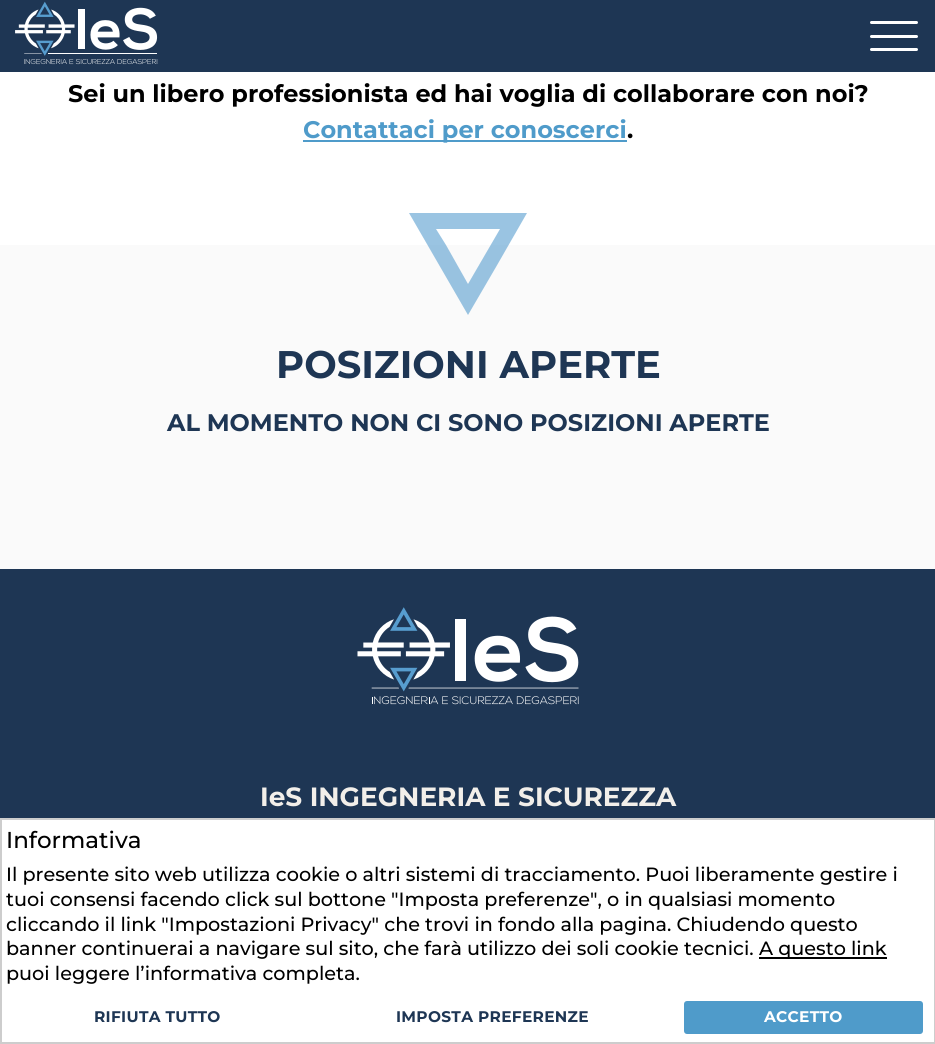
#include <cairo.h>
#include <math.h>
#include <stddef.h>


static void rgb(cairo_t *cr, int r, int g, int b)
{
	cairo_set_source_rgb(cr, r / 255.0, g / 255.0, b / 255.0);
}

static void face(cairo_t *cr, const char *family, double size, int italic, int bold)
{
	cairo_select_font_face(cr, family, italic ? CAIRO_FONT_SLANT_ITALIC : CAIRO_FONT_SLANT_NORMAL,
		bold ? CAIRO_FONT_WEIGHT_BOLD : CAIRO_FONT_WEIGHT_NORMAL);
	cairo_set_font_size(cr, size);
}

static void label(cairo_t *cr, double x, double y, const char *s)
{
	cairo_move_to(cr, x, y);
	cairo_show_text(cr, s);
}

static void tracked(cairo_t *cr, double x, double y, const char *s, double letter, double word)
{
	cairo_move_to(cr, x, y);
	while (*s) {
		char ch[5] = {0};
		int n = 0;
		do ch[n++] = *s++; while ((*s & 0xC0) == 0x80);
		cairo_show_text(cr, ch);
		cairo_rel_move_to(cr, letter + word * (*ch == ' '), 0);
	}
}

static void rect(cairo_t *cr, double x, double y, double w, double h)
{
	cairo_rectangle(cr, x, y, w, h);
	cairo_fill(cr);
}

static void rrect(cairo_t *cr, double x, double y, double w, double h, double r)
{
	cairo_new_sub_path(cr);
	cairo_arc(cr, x + w - r, y + h - r, r, 0, M_PI / 2);
	cairo_arc(cr, x + r, y + h - r, r, M_PI / 2, M_PI);
	cairo_arc(cr, x + r, y + r, r, M_PI, 1.5 * M_PI);
	cairo_arc(cr, x + w - r, y + r, r, 1.5 * M_PI, 2 * M_PI);
	cairo_close_path(cr);
}

static void image(cairo_t *cr, const char *path, double x, double y, double w, double h)
{
	cairo_surface_t *image = cairo_image_surface_create_from_png(path);
	cairo_save(cr);
	cairo_set_source_surface(cr, image, x, y);
	cairo_rectangle(cr, x, y, w, h);
	cairo_fill(cr);
	cairo_restore(cr);
	cairo_surface_destroy(image);
}

static void draw(cairo_t *cr) {
	rgb(cr, 255, 255, 255);
	cairo_paint(cr);
	rgb(cr, 30, 54, 84);
	rect(cr, 0, 0, 935, 72);
	image(cr, "image0.png", 15, 1, 143, 64);
	rgb(cr, 255, 255, 255);
	rrect(cr, 870, 21, 48, 3, 1.5);
	cairo_fill(cr);
	rrect(cr, 870, 35, 48, 3, 1.5);
	cairo_fill(cr);
	rrect(cr, 870, 48, 48, 3, 1.5);
	cairo_fill(cr);
	face(cr, "Montserrat Thin", 24, 0, 0);
	rgb(cr, 0, 0, 0);
	label(cr, 68, 102, "Sei un libero professionista ed hai voglia di collaborare con noi?");
	rgb(cr, 79, 155, 202);
	rect(cr, 303, 140, 324, 2);
	label(cr, 303, 138, "Contattaci per conoscerci");
	rgb(cr, 0, 0, 0);
	label(cr, 627, 138, ".");
	rgb(cr, 250, 250, 250);
	rect(cr, 0, 245, 935, 324);
	cairo_set_source_rgba(cr, 0.341, 0.616, 0.812, 0.6);
	cairo_new_path(cr);
	cairo_move_to(cr, 496, 267);
	cairo_line_to(cr, 527, 213);
	cairo_line_to(cr, 409, 213);
	cairo_line_to(cr, 468, 315);
	cairo_close_path(cr);
	cairo_move_to(cr, 446, 245);
	cairo_line_to(cr, 436, 229);
	cairo_line_to(cr, 500, 229);
	cairo_line_to(cr, 468, 284);
	cairo_close_path(cr);
	cairo_fill(cr);
	face(cr, "Montserrat Thin", 38.5, 0, 0);
	rgb(cr, 30, 54, 84);
	label(cr, 276, 378, "POSIZIONI APERTE");
	face(cr, "Montserrat Thin", 24, 0, 0);
	label(cr, 167, 431, "AL MOMENTO NON CI SONO POSIZIONI APERTE");
	rect(cr, 0, 569, 935, 249);
	image(cr, "image1.png", 357, 607, 222, 98);
	face(cr, "Montserrat Thin", 26.4, 0, 0);
	rgb(cr, 242, 239, 234);
	label(cr, 260, 806, "IeS INGEGNERIA E SICUREZZA");
	cairo_rectangle(cr, 1, 819, 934, 224);
	rgb(cr, 205, 205, 205);
	cairo_stroke(cr);
	face(cr, "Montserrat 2 Thin", 23, 0, 0);
	rgb(cr, 0, 0, 0);
	label(cr, 6, 848, "Informativa");
	face(cr, "Montserrat 2 Thin", 19.2, 0, 0);
	label(cr, 6, 881, "Il presente sito web utilizza cookie o altri sistemi di tracciamento. Puoi liberamente gestire i");
	label(cr, 6, 906, "tuoi consensi facendo click sul bottone \"Imposta preferenze\", o in qualsiasi momento");
	label(cr, 6, 931, "cliccando il link \"Impostazioni Privacy\" che trovi in fondo alla pagina. Chiudendo questo");
	label(cr, 6, 955, "banner continuerai a navigare sul sito, che farà utilizzo dei soli cookie tecnici.");
	rect(cr, 759, 957, 128, 2);
	label(cr, 759, 955, "A questo link");
	label(cr, 6, 980, "puoi leggere l’informativa completa.");
	face(cr, "Montserrat Thin", 15.4, 0, 0);
	rgb(cr, 30, 54, 84);
	tracked(cr, 94, 1022, "RIFIUTA TUTTO", 0.3, 0);
	tracked(cr, 396, 1022, "IMPOSTA PREFERENZE", 0.3, 0);
	rgb(cr, 79, 155, 202);
	rrect(cr, 685, 1002, 237, 31, 2);
	cairo_fill_preserve(cr);
	cairo_stroke(cr);
	rgb(cr, 255, 255, 255);
	tracked(cr, 764, 1022, "ACCETTO", 0.3, 0);
}

int main(void) {
	cairo_surface_t *surface = cairo_image_surface_create(CAIRO_FORMAT_RGB24, 935, 1044);
	cairo_t *cr = cairo_create(surface);
	cairo_font_options_t *options = cairo_font_options_create();
	cairo_font_options_set_hint_metrics(options, CAIRO_HINT_METRICS_OFF);
	cairo_font_options_set_hint_style(options, CAIRO_HINT_STYLE_NONE);
	cairo_set_font_options(cr, options);
	cairo_set_miter_limit(cr, 4);
	draw(cr);
	cairo_surface_write_to_png(surface, "render.png");
	cairo_font_options_destroy(options);
	cairo_destroy(cr);
	cairo_surface_destroy(surface);
	return 0;
}
